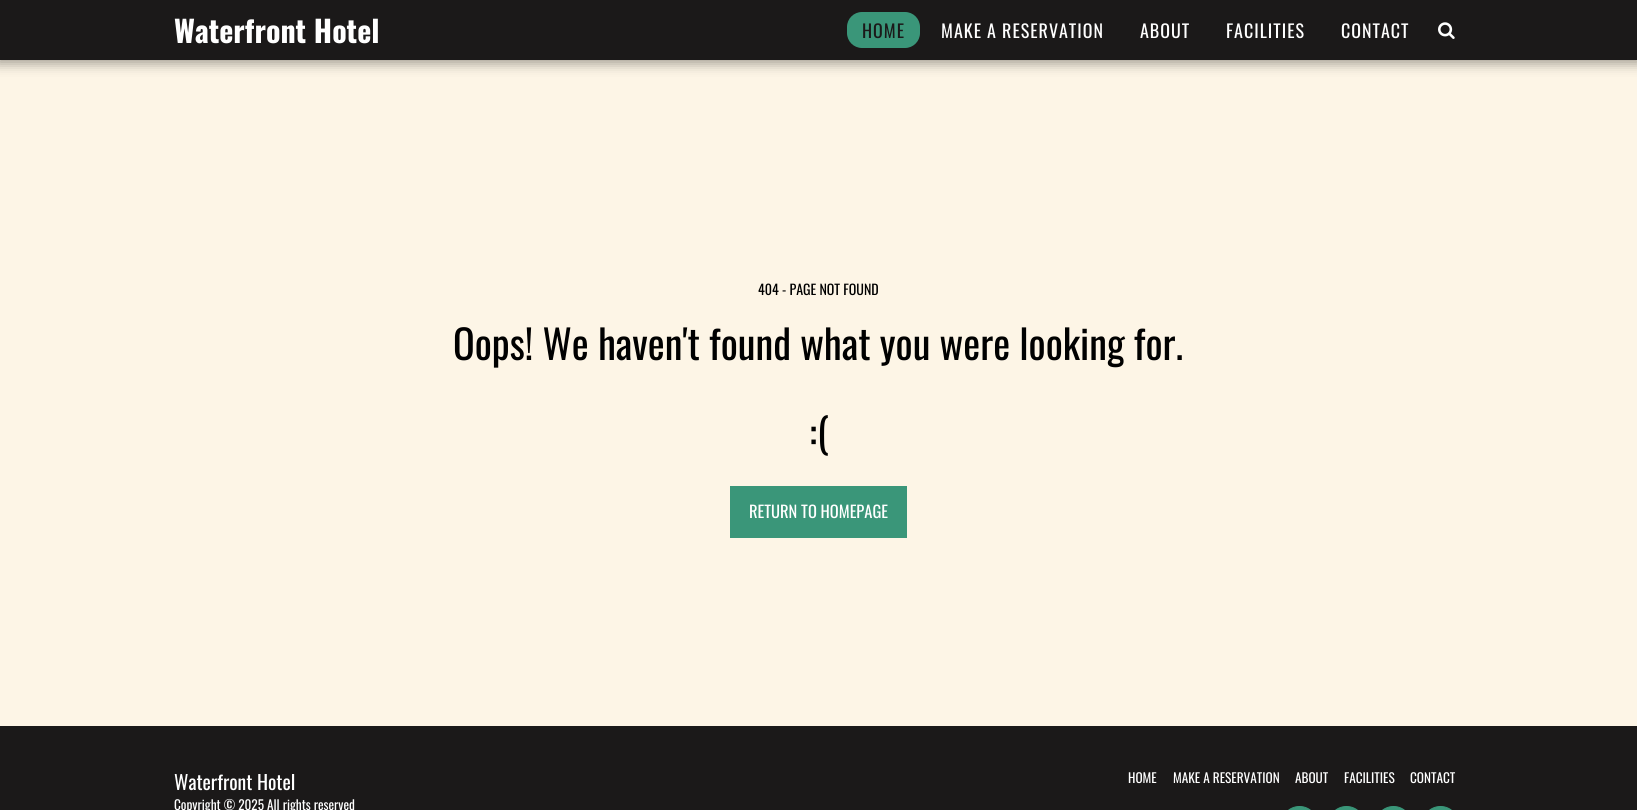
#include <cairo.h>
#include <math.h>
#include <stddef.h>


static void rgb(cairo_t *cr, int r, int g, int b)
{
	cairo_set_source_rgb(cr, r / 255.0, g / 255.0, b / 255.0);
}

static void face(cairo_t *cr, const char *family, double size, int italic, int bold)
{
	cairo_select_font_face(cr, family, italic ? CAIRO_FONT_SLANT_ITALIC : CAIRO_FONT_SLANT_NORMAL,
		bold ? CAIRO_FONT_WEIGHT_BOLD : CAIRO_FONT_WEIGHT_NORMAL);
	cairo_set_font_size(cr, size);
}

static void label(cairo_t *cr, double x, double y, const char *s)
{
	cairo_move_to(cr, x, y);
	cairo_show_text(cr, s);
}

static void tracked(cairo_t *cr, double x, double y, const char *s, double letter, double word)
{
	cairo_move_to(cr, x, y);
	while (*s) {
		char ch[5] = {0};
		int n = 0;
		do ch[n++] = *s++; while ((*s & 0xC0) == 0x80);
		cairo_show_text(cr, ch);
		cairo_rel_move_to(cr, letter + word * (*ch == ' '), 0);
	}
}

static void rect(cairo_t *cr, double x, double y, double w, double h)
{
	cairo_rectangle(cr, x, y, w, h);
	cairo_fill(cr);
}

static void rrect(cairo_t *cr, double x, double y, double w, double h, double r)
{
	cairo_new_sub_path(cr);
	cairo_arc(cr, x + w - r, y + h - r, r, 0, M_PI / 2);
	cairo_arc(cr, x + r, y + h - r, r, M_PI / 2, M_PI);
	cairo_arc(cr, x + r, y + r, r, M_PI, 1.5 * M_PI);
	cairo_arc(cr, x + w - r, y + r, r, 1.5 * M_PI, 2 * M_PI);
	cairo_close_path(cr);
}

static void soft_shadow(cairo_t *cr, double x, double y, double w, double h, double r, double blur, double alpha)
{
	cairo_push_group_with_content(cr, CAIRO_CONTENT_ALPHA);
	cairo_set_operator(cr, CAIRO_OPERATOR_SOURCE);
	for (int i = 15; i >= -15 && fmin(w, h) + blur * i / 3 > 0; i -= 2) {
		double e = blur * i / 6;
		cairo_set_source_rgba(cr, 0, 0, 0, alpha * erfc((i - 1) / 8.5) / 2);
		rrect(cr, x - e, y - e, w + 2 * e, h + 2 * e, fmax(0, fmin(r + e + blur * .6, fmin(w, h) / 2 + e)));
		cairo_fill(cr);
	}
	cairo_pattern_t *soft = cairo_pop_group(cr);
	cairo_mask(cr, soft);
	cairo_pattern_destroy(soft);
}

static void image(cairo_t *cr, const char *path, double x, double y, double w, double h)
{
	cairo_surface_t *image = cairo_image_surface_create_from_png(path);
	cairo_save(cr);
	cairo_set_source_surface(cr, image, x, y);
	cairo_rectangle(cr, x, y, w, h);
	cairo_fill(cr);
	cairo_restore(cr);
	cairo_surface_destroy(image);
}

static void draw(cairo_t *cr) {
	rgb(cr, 253, 245, 230);
	cairo_paint(cr);
	rgb(cr, 0, 0, 0);
	soft_shadow(cr, -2, 0, 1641, 64, 0, 6, 0.35);
	rgb(cr, 27, 25, 25);
	rect(cr, 0, 0, 1637, 60);
	face(cr, "Oswald", 30, 0, 1);
	rgb(cr, 255, 255, 255);
	label(cr, 174, 43, "Waterfront Hotel");
	rgb(cr, 58, 150, 121);
	rrect(cr, 847, 12, 73, 36, 15);
	cairo_fill(cr);
	face(cr, "Oswald", 18, 0, 0);
	rgb(cr, 27, 25, 25);
	tracked(cr, 862, 38, "HOME", 1, 0);
	rgb(cr, 255, 255, 255);
	tracked(cr, 941, 38, "MAKE A RESERVATION", 1, 0);
	tracked(cr, 1140, 38, "ABOUT", 1, 0);
	tracked(cr, 1226, 38, "FACILITIES", 1, 0);
	tracked(cr, 1341, 38, "CONTACT", 1, 0);
	image(cr, "image0.png", 1438, 22, 17, 17);
	face(cr, "Oswald", 14, 0, 0);
	rgb(cr, 0, 0, 0);
	label(cr, 758, 295, "404 - PAGE NOT FOUND");
	face(cr, "Oswald", 40.25, 0, 0);
	label(cr, 453, 360, "Oops! We haven't found what you were looking for.");
	label(cr, 809, 448, ":(");
	rgb(cr, 58, 150, 121);
	rect(cr, 730, 486, 177, 52);
	face(cr, "Oswald", 16.5, 0, 0);
	rgb(cr, 255, 255, 255);
	label(cr, 749, 518, "RETURN TO HOMEPAGE");
	rgb(cr, 27, 25, 25);
	rect(cr, 0, 726, 1637, 84);
	face(cr, "Oswald", 19.75, 0, 0);
	rgb(cr, 255, 255, 255);
	label(cr, 174, 790, "Waterfront Hotel");
	face(cr, "Oswald", 13.25, 0, 0);
	label(cr, 174, 810, "Copyright © 2025 All rights reserved");
	label(cr, 1128, 783, "HOME");
	label(cr, 1173, 783, "MAKE A RESERVATION");
	label(cr, 1295, 783, "ABOUT");
	label(cr, 1344, 783, "FACILITIES");
	label(cr, 1410, 783, "CONTACT");
	rgb(cr, 58, 150, 121);
	rrect(cr, 1281.5, 806.5, 36, 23, 18);
	cairo_fill_preserve(cr);
	cairo_set_line_width(cr, 1);
	cairo_stroke(cr);
	rrect(cr, 1328.5, 806.5, 36, 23, 18);
	cairo_fill_preserve(cr);
	cairo_stroke(cr);
	rrect(cr, 1375.5, 806.5, 36, 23, 18);
	cairo_fill_preserve(cr);
	cairo_stroke(cr);
	rrect(cr, 1422.5, 806.5, 36, 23, 18);
	cairo_fill_preserve(cr);
	cairo_stroke(cr);
}

int main(void) {
	cairo_surface_t *surface = cairo_image_surface_create(CAIRO_FORMAT_RGB24, 1637, 810);
	cairo_t *cr = cairo_create(surface);
	cairo_font_options_t *options = cairo_font_options_create();
	cairo_font_options_set_hint_metrics(options, CAIRO_HINT_METRICS_OFF);
	cairo_font_options_set_hint_style(options, CAIRO_HINT_STYLE_NONE);
	cairo_set_font_options(cr, options);
	cairo_set_miter_limit(cr, 4);
	draw(cr);
	cairo_surface_write_to_png(surface, "render.png");
	cairo_font_options_destroy(options);
	cairo_destroy(cr);
	cairo_surface_destroy(surface);
	return 0;
}
